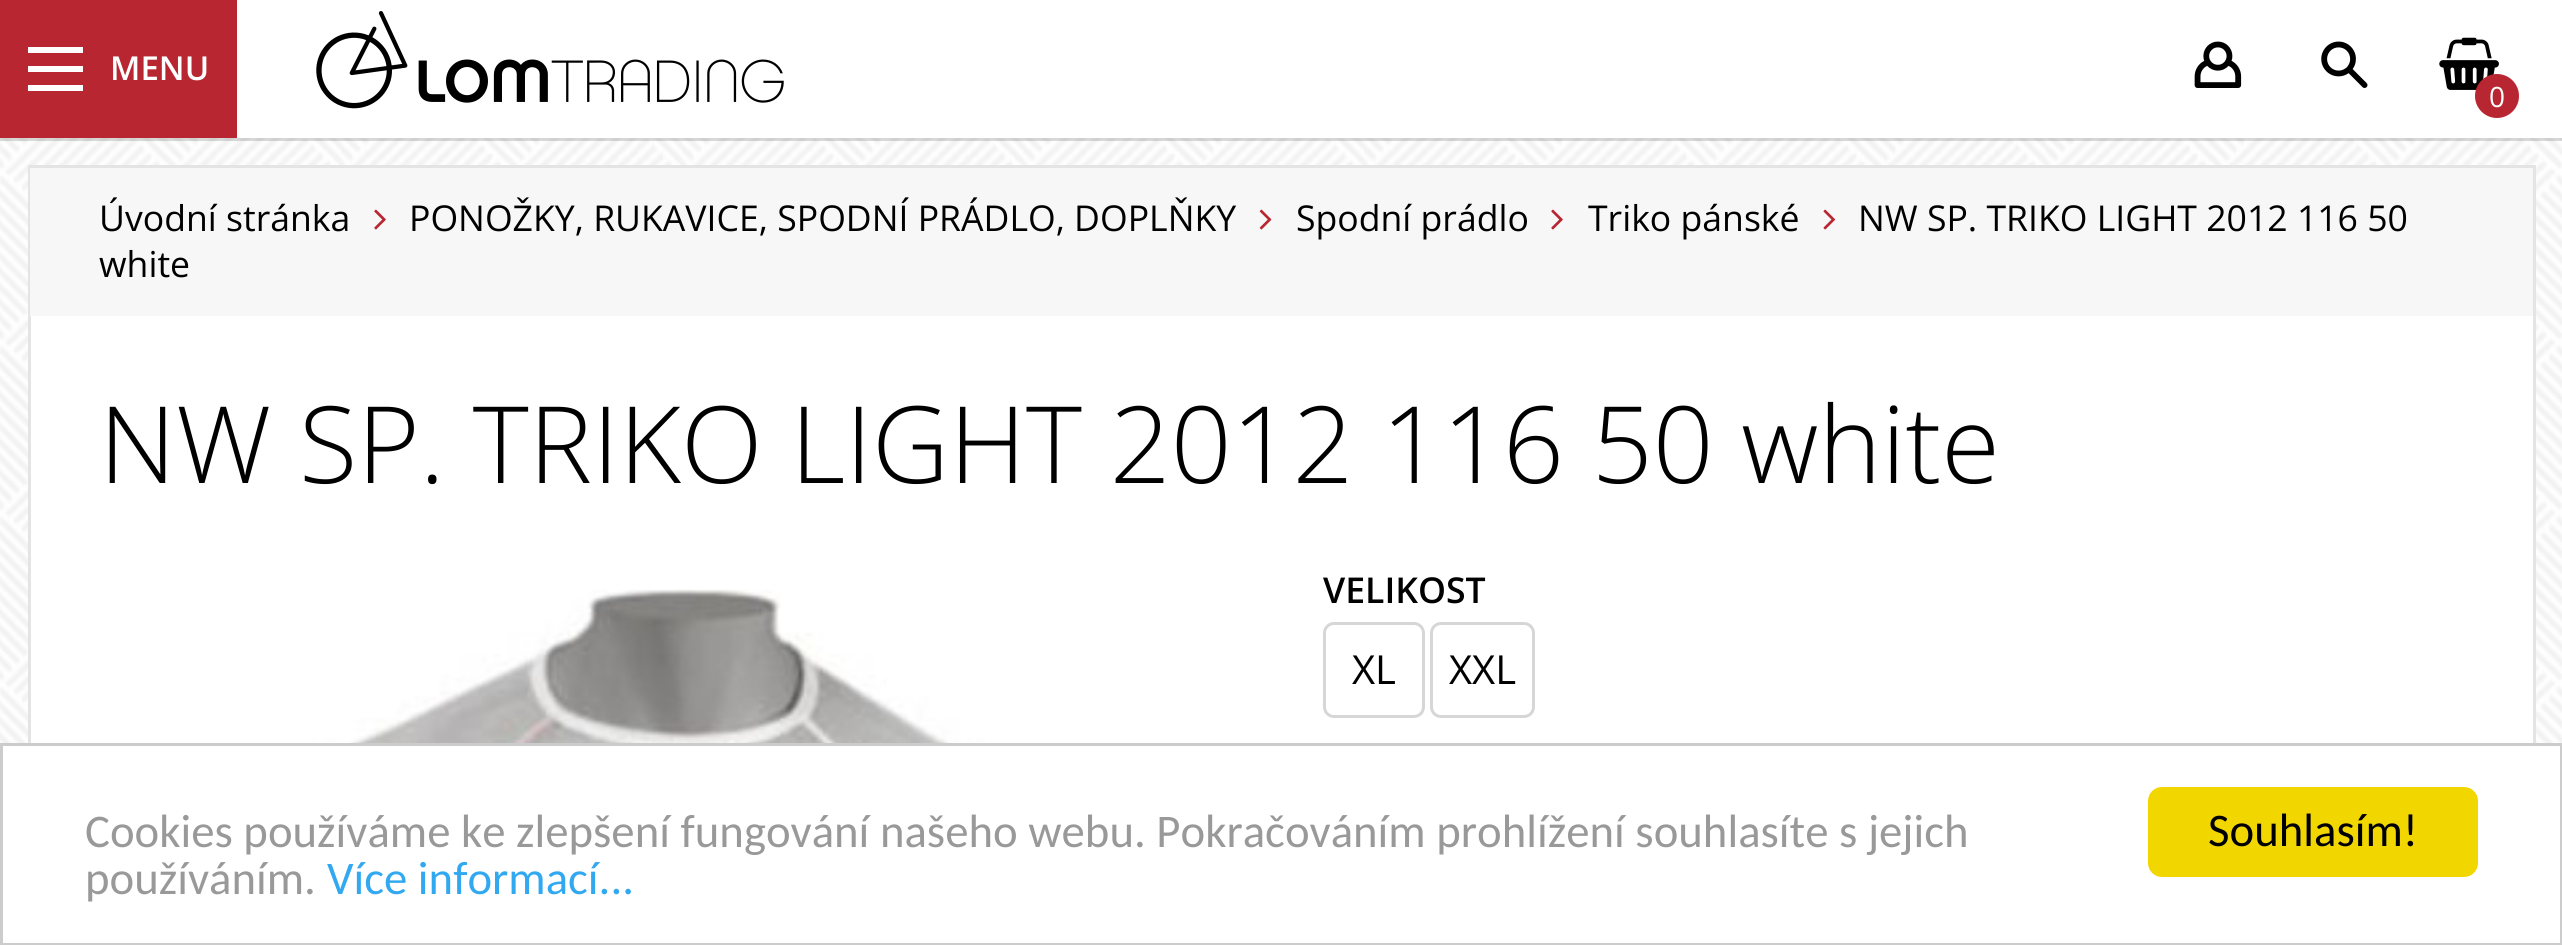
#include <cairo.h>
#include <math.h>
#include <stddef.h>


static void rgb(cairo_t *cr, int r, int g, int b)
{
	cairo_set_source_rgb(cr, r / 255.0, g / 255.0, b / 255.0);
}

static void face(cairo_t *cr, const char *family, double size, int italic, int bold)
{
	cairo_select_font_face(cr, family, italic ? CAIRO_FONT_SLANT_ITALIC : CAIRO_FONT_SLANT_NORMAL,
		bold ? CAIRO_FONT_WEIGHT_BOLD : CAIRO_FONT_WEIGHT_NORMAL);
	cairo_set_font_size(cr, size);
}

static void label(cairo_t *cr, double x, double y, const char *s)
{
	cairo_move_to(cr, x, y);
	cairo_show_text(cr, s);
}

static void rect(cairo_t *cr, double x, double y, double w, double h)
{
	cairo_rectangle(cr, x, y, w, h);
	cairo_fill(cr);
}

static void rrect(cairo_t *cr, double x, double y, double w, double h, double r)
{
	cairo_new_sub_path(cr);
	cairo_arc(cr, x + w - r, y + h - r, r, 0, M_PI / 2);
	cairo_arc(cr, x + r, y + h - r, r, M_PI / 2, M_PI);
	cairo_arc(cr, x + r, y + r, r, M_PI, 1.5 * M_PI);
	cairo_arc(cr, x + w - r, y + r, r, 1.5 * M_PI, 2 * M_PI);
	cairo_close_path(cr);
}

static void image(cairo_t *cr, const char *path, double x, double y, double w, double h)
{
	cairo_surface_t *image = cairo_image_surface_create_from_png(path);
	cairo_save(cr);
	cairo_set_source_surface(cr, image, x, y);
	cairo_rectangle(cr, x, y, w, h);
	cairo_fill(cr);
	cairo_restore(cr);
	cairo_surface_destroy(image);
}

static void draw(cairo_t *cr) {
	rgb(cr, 255, 255, 255);
	cairo_paint(cr);
	image(cr, "image0.png", 0, 138, 2562, 605);
	cairo_set_source_rgba(cr, 0, 0, 0, 0.15);
	rect(cr, 0, 138, 2562, 3);
	rgb(cr, 184, 38, 49);
	rect(cr, 0, 0, 237, 138);
	rgb(cr, 255, 255, 255);
	rect(cr, 28, 47, 55, 6);
	rect(cr, 28, 66, 55, 6);
	rect(cr, 28, 85, 55, 6);
	face(cr, "Open Sans SemiBold", 33, 0, 0);
	label(cr, 110, 80, "MENU");
	image(cr, "image1.png", 316, 11, 468, 98);
	image(cr, "image2.png", 2194, 41, 48, 47);
	image(cr, "image3.png", 2321, 41, 47, 47);
	image(cr, "image4.png", 2439, 37, 60, 53);
	rgb(cr, 184, 38, 49);
	cairo_arc(cr, 2497, 96, 20.5, 0, 2 * M_PI);
	cairo_fill_preserve(cr);
	cairo_set_line_width(cr, 3);
	cairo_stroke(cr);
	face(cr, "Open Sans", 28, 0, 0);
	rgb(cr, 255, 255, 255);
	label(cr, 2489, 107, "0");
	rect(cr, 31, 316, 2502, 427);
	cairo_rectangle(cr, 29.5, 166.5, 2505, 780);
	rgb(cr, 228, 228, 228);
	cairo_stroke(cr);
	rgb(cr, 247, 247, 247);
	rect(cr, 30, 168, 2503, 148);
	face(cr, "Open Sans", 35.6, 0, 0);
	rgb(cr, 0, 0, 0);
	label(cr, 99, 231, "Úvodní stránka");
	image(cr, "image5.png", 374, 209, 12, 21);
	label(cr, 409, 231, "PONOŽKY, RUKAVICE, SPODNÍ PRÁDLO, DOPLŇKY");
	image(cr, "image6.png", 1259, 209, 13, 21);
	label(cr, 1296, 231, "Spodní prádlo");
	image(cr, "image5.png", 1551, 209, 12, 21);
	label(cr, 1588, 231, "Triko pánské");
	image(cr, "image7.png", 1823, 209, 12, 21);
	label(cr, 1858, 231, "NW SP. TRIKO LIGHT 2012 116 50");
	label(cr, 99, 277, "white");
	face(cr, "Open Sans Light", 106.75, 0, 0);
	label(cr, 99, 483, "NW SP. TRIKO LIGHT 2012 116 50 white");
	image(cr, "image8.png", 260, 589, 817, 154);
	face(cr, "Open Sans SemiBold", 35.6, 0, 0);
	label(cr, 1323, 603, "VELIKOST");
	rrect(cr, 1324.5, 623.5, 99, 93, 9.5);
	rgb(cr, 214, 214, 214);
	cairo_stroke(cr);
	face(cr, "Open Sans", 40, 0, 0);
	rgb(cr, 0, 0, 0);
	label(cr, 1352, 684, "XL");
	rrect(cr, 1431.5, 623.5, 102, 93, 9.5);
	rgb(cr, 214, 214, 214);
	cairo_stroke(cr);
	rgb(cr, 0, 0, 0);
	label(cr, 1449, 684, "XXL");
	rgb(cr, 255, 255, 255);
	rect(cr, 28, 746, 2508, 197);
	cairo_rectangle(cr, 1.5, 744.5, 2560, 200);
	rgb(cr, 204, 204, 204);
	cairo_stroke(cr);
	face(cr, "Carlito", 46.75, 0, 0);
	rgb(cr, 153, 153, 153);
	label(cr, 85, 847, "Cookies používáme ke zlepšení fungování našeho webu. Pokračováním prohlížení souhlasíte s jejich");
	label(cr, 85, 894, "používáním.");
	rgb(cr, 49, 168, 240);
	label(cr, 327, 894, "Více informací...");
	rgb(cr, 241, 214, 0);
	rrect(cr, 2148, 787, 330, 90, 14);
	cairo_fill(cr);
	rgb(cr, 0, 0, 0);
	label(cr, 2208, 846, "Souhlasím!");
}

int main(void) {
	cairo_surface_t *surface = cairo_image_surface_create(CAIRO_FORMAT_RGB24, 2562, 945);
	cairo_t *cr = cairo_create(surface);
	cairo_font_options_t *options = cairo_font_options_create();
	cairo_font_options_set_hint_metrics(options, CAIRO_HINT_METRICS_OFF);
	cairo_font_options_set_hint_style(options, CAIRO_HINT_STYLE_NONE);
	cairo_set_font_options(cr, options);
	cairo_set_miter_limit(cr, 4);
	draw(cr);
	cairo_surface_write_to_png(surface, "render.png");
	cairo_font_options_destroy(options);
	cairo_destroy(cr);
	cairo_surface_destroy(surface);
	return 0;
}
